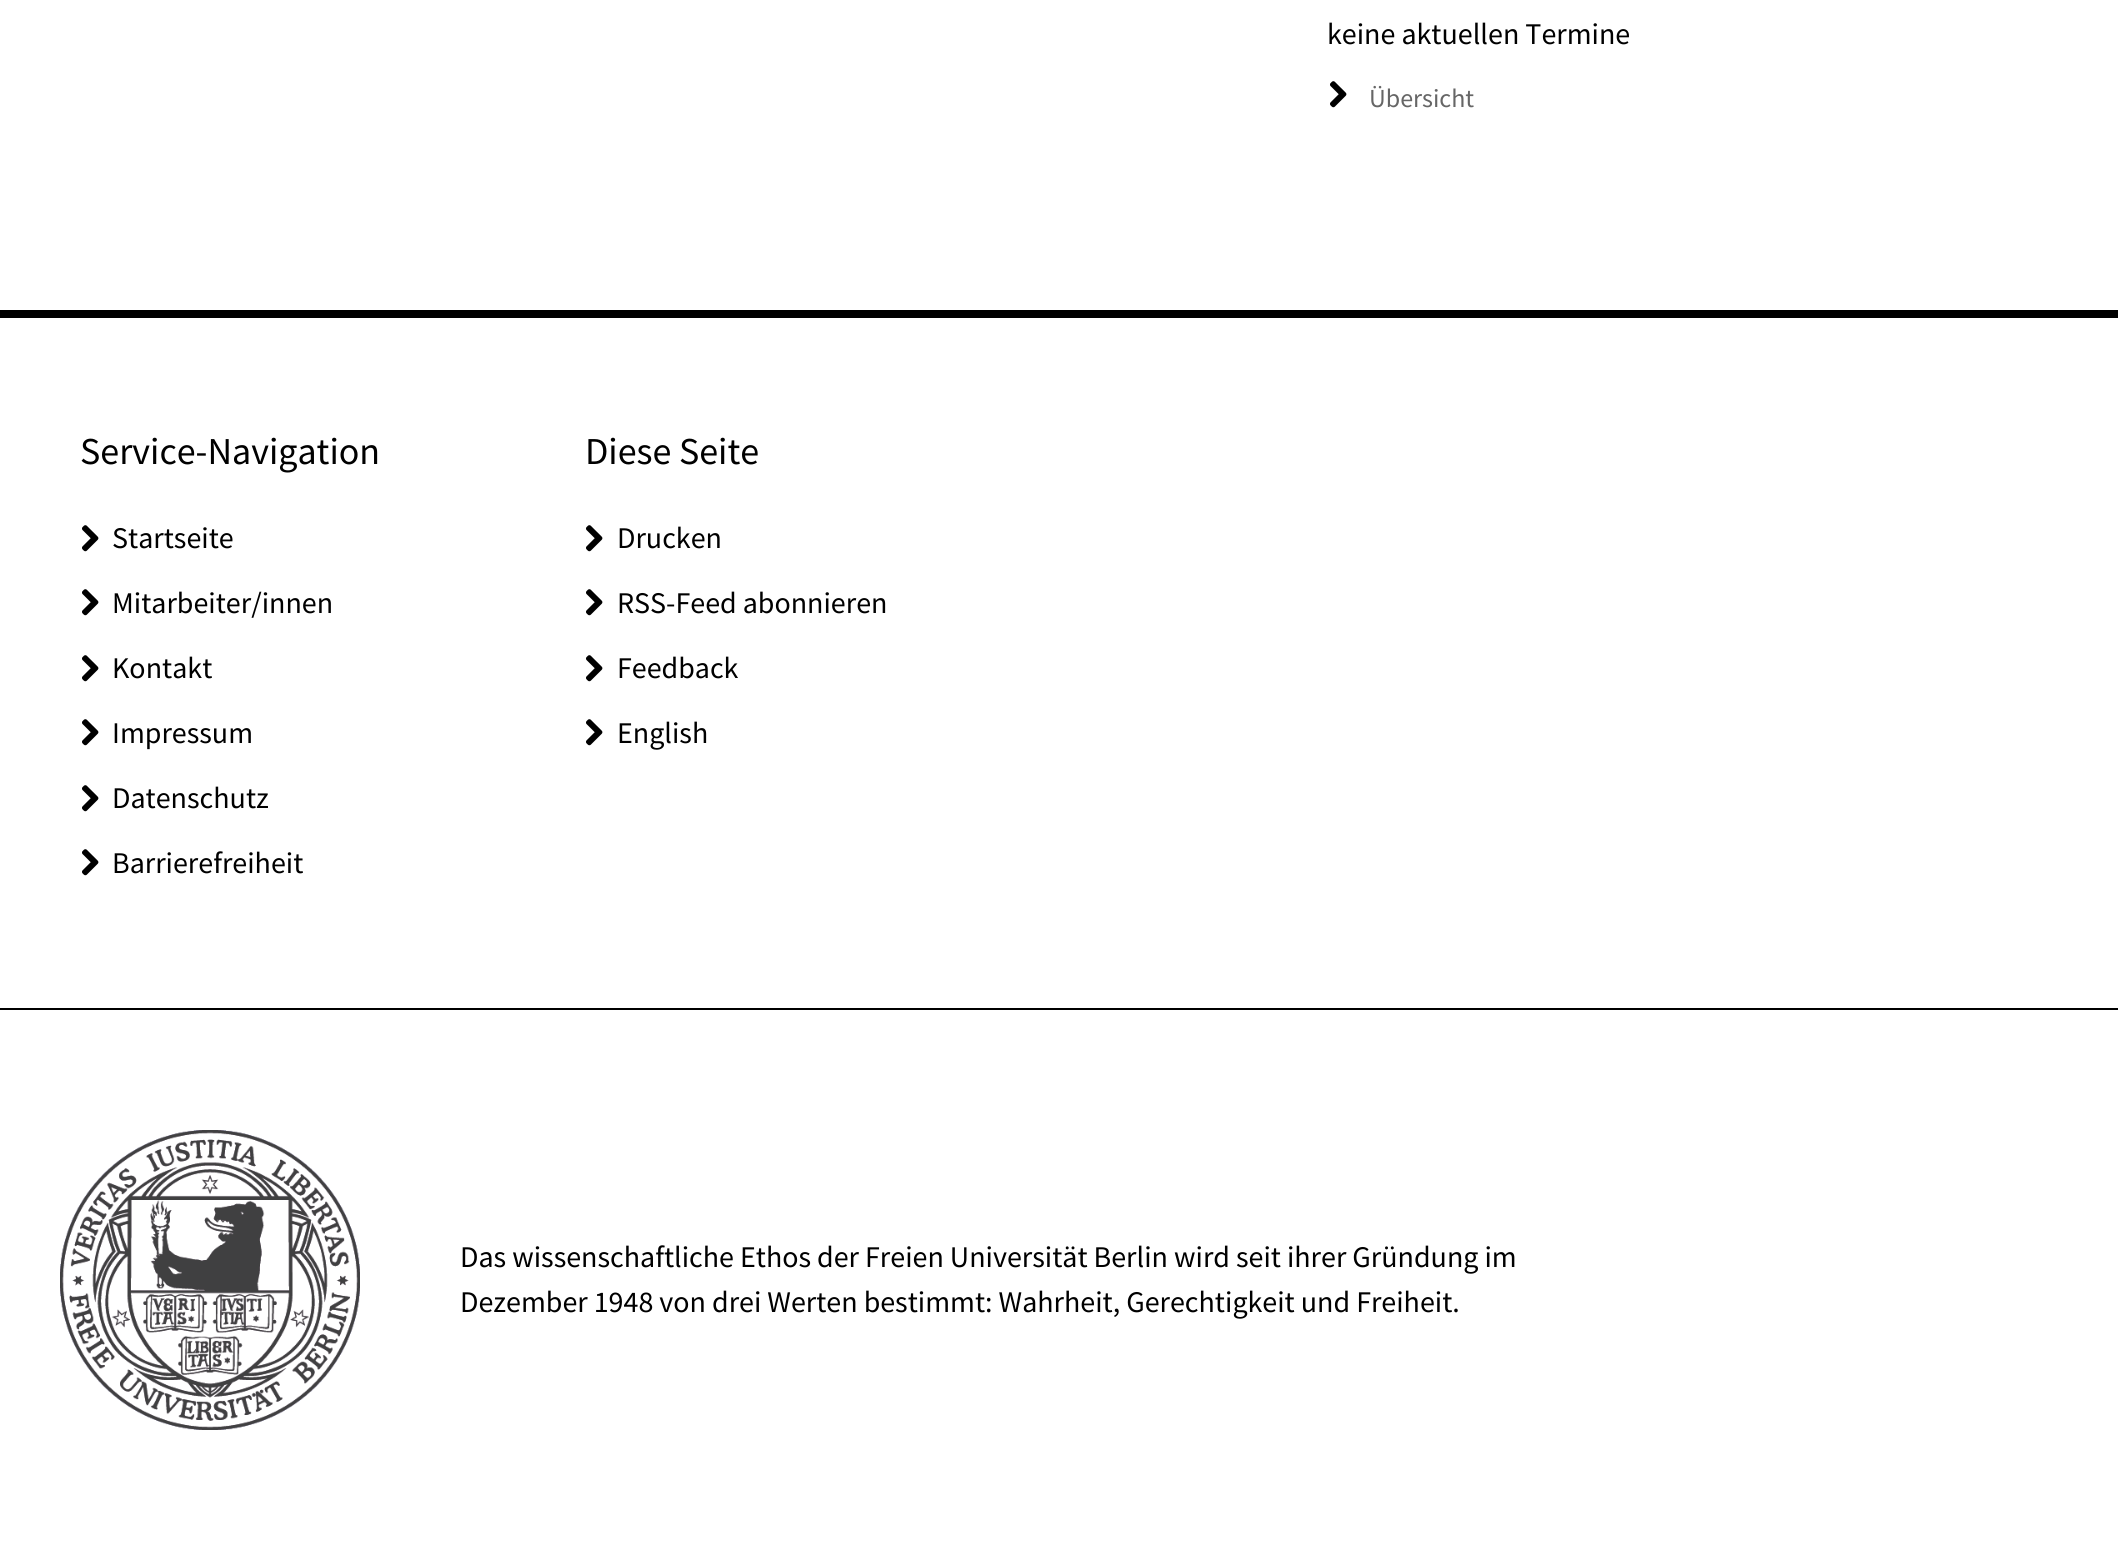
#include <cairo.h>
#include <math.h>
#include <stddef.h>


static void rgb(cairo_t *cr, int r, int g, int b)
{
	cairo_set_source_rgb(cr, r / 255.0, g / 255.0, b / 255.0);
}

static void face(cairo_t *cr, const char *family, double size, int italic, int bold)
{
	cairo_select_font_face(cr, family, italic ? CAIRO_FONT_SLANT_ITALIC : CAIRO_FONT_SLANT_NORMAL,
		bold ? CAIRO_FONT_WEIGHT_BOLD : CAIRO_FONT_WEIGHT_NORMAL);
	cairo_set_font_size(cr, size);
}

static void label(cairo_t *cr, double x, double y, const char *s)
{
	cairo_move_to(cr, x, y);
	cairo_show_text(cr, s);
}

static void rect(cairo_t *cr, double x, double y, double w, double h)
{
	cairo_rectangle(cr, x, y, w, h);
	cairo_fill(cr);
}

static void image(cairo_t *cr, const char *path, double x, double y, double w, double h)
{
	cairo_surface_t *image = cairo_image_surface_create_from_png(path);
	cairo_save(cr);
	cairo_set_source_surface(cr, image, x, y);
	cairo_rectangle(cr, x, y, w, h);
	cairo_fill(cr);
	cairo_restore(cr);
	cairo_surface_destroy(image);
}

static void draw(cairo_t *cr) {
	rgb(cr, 255, 255, 255);
	cairo_paint(cr);
	face(cr, "Source Sans Pro", 30, 0, 0);
	rgb(cr, 0, 0, 0);
	label(cr, 1327, 44, "keine aktuellen Termine");
	image(cr, "image0.png", 1330, 81, 17, 27);
	face(cr, "Source Sans Pro", 26, 0, 0);
	rgb(cr, 102, 102, 102);
	label(cr, 1369, 107, "Übersicht");
	rgb(cr, 0, 0, 0);
	rect(cr, 0, 310, 2118, 8);
	rect(cr, 0, 1008, 2118, 2);
	face(cr, "Source Sans Pro", 38, 0, 0);
	label(cr, 80, 464, "Service-Navigation");
	image(cr, "image0.png", 82, 525, 17, 27);
	face(cr, "Source Sans Pro", 30, 0, 0);
	label(cr, 112, 548, "Startseite");
	image(cr, "image0.png", 82, 589, 17, 27);
	label(cr, 112, 613, "Mitarbeiter/innen");
	image(cr, "image0.png", 82, 655, 17, 27);
	label(cr, 112, 678, "Kontakt");
	image(cr, "image0.png", 82, 719, 17, 27);
	label(cr, 112, 743, "Impressum");
	image(cr, "image0.png", 82, 785, 17, 27);
	label(cr, 112, 808, "Datenschutz");
	image(cr, "image0.png", 82, 849, 17, 27);
	label(cr, 112, 873, "Barrierefreiheit");
	face(cr, "Source Sans Pro", 38, 0, 0);
	label(cr, 585, 464, "Diese Seite");
	image(cr, "image0.png", 586, 525, 17, 27);
	face(cr, "Source Sans Pro", 30, 0, 0);
	label(cr, 617, 548, "Drucken");
	image(cr, "image0.png", 586, 589, 17, 27);
	label(cr, 617, 613, "RSS-Feed abonnieren");
	image(cr, "image0.png", 586, 655, 17, 27);
	label(cr, 617, 678, "Feedback");
	image(cr, "image0.png", 586, 719, 17, 27);
	label(cr, 617, 743, "English");
	image(cr, "image1.png", 60, 1130, 300, 300);
	label(cr, 460, 1267, "Das wissenschaftliche Ethos der Freien Universität Berlin wird seit ihrer Gründung im");
	label(cr, 460, 1312, "Dezember 1948 von drei Werten bestimmt: Wahrheit, Gerechtigkeit und Freiheit.");
}

int main(void) {
	cairo_surface_t *surface = cairo_image_surface_create(CAIRO_FORMAT_RGB24, 2118, 1550);
	cairo_t *cr = cairo_create(surface);
	cairo_font_options_t *options = cairo_font_options_create();
	cairo_font_options_set_hint_metrics(options, CAIRO_HINT_METRICS_OFF);
	cairo_font_options_set_hint_style(options, CAIRO_HINT_STYLE_NONE);
	cairo_set_font_options(cr, options);
	cairo_set_miter_limit(cr, 4);
	draw(cr);
	cairo_surface_write_to_png(surface, "render.png");
	cairo_font_options_destroy(options);
	cairo_destroy(cr);
	cairo_surface_destroy(surface);
	return 0;
}
